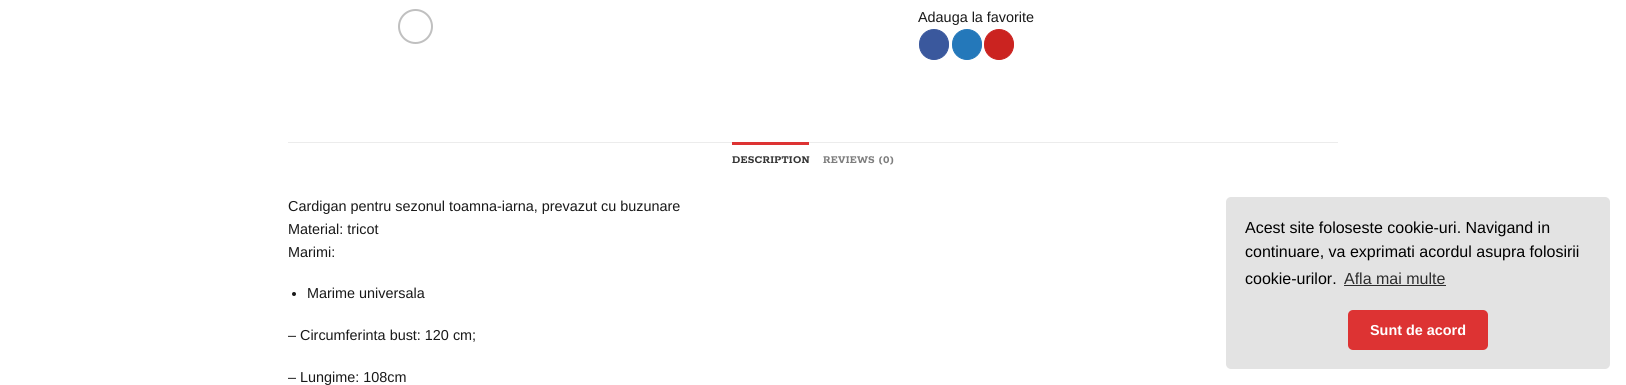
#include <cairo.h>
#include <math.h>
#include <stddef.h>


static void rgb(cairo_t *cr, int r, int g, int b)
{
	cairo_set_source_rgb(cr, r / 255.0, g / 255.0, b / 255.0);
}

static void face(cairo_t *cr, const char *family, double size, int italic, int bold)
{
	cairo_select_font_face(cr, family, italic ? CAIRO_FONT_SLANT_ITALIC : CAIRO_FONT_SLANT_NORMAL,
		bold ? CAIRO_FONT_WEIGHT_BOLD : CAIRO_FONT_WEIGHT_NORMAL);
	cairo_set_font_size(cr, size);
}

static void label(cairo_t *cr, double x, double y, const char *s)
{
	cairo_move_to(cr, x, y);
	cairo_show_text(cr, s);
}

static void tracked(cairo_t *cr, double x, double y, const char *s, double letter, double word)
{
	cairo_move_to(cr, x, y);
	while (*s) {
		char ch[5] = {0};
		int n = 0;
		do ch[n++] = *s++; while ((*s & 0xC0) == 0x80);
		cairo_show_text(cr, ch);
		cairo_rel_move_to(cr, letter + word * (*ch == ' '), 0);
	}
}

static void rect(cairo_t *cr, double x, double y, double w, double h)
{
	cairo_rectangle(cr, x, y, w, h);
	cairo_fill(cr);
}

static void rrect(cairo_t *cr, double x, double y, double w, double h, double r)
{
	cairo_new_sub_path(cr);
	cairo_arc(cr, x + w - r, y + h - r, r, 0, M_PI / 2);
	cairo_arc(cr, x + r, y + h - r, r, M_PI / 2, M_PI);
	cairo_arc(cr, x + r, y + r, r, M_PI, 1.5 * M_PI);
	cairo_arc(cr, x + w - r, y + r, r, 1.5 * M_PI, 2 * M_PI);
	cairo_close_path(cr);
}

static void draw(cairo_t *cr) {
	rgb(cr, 255, 255, 255);
	cairo_paint(cr);
	cairo_arc(cr, 415.5, 26.5, 16.5, 0, 2 * M_PI);
	rgb(cr, 192, 192, 192);
	cairo_stroke(cr);
	face(cr, "Liberation Sans", 14.4, 0, 0);
	rgb(cr, 25, 25, 25);
	label(cr, 918, 22, "Adauga la favorite");
	rgb(cr, 58, 88, 157);
	rrect(cr, 919.5, 29.5, 29, 30, 14.5);
	cairo_fill_preserve(cr);
	cairo_set_line_width(cr, 1);
	cairo_stroke(cr);
	rgb(cr, 36, 120, 186);
	rrect(cr, 952.5, 29.5, 29, 30, 14.5);
	cairo_fill_preserve(cr);
	cairo_stroke(cr);
	rgb(cr, 203, 35, 32);
	rrect(cr, 984.5, 29.5, 29, 30, 14.5);
	cairo_fill_preserve(cr);
	cairo_stroke(cr);
	rgb(cr, 236, 236, 236);
	rect(cr, 288, 142, 1050, 1);
	rgb(cr, 221, 51, 51);
	rect(cr, 732, 142, 77, 3);
	face(cr, "Rokkitt", 11.5, 0, 1);
	rgb(cr, 53, 53, 53);
	tracked(cr, 732, 163, "DESCRIPTION", 0.25, 0);
	rgb(cr, 125, 125, 125);
	tracked(cr, 823, 163, "REVIEWS (0)", 0.25, 0);
	face(cr, "Liberation Sans", 14.4, 0, 0);
	rgb(cr, 25, 25, 25);
	label(cr, 288, 211, "Cardigan pentru sezonul toamna-iarna, prevazut cu buzunare");
	label(cr, 288, 234, "Material: tricot");
	label(cr, 288, 257, "Marimi:");
	cairo_new_path(cr);
	cairo_arc(cr, 294, 294, 2, 0, 2 * M_PI);
	cairo_fill(cr);
	label(cr, 307, 298, "Marime universala");
	label(cr, 288, 340, "– Circumferinta bust: 120 cm;");
	label(cr, 288, 382, "– Lungime: 108cm");
	rgb(cr, 227, 227, 227);
	rrect(cr, 1226, 197, 384, 172, 5);
	cairo_fill(cr);
	face(cr, "Liberation Sans", 16, 0, 0);
	rgb(cr, 0, 0, 0);
	label(cr, 1245, 233, "Acest site foloseste cookie-uri. Navigand in");
	label(cr, 1245, 257, "continuare, va exprimati acordul asupra folosirii");
	label(cr, 1245, 284, "cookie-urilor.");
	rgb(cr, 45, 45, 45);
	label(cr, 1344, 284, "Afla mai multe");
	rect(cr, 1344, 285, 102, 1);
	rgb(cr, 221, 51, 51);
	rrect(cr, 1348, 310, 140, 40, 5);
	cairo_fill(cr);
	face(cr, "Liberation Sans", 14.4, 0, 1);
	rgb(cr, 255, 255, 255);
	label(cr, 1370, 335, "Sunt de acord");
}

int main(void) {
	cairo_surface_t *surface = cairo_image_surface_create(CAIRO_FORMAT_RGB24, 1626, 385);
	cairo_t *cr = cairo_create(surface);
	cairo_font_options_t *options = cairo_font_options_create();
	cairo_font_options_set_hint_metrics(options, CAIRO_HINT_METRICS_OFF);
	cairo_font_options_set_hint_style(options, CAIRO_HINT_STYLE_NONE);
	cairo_set_font_options(cr, options);
	cairo_set_miter_limit(cr, 4);
	draw(cr);
	cairo_surface_write_to_png(surface, "render.png");
	cairo_font_options_destroy(options);
	cairo_destroy(cr);
	cairo_surface_destroy(surface);
	return 0;
}
